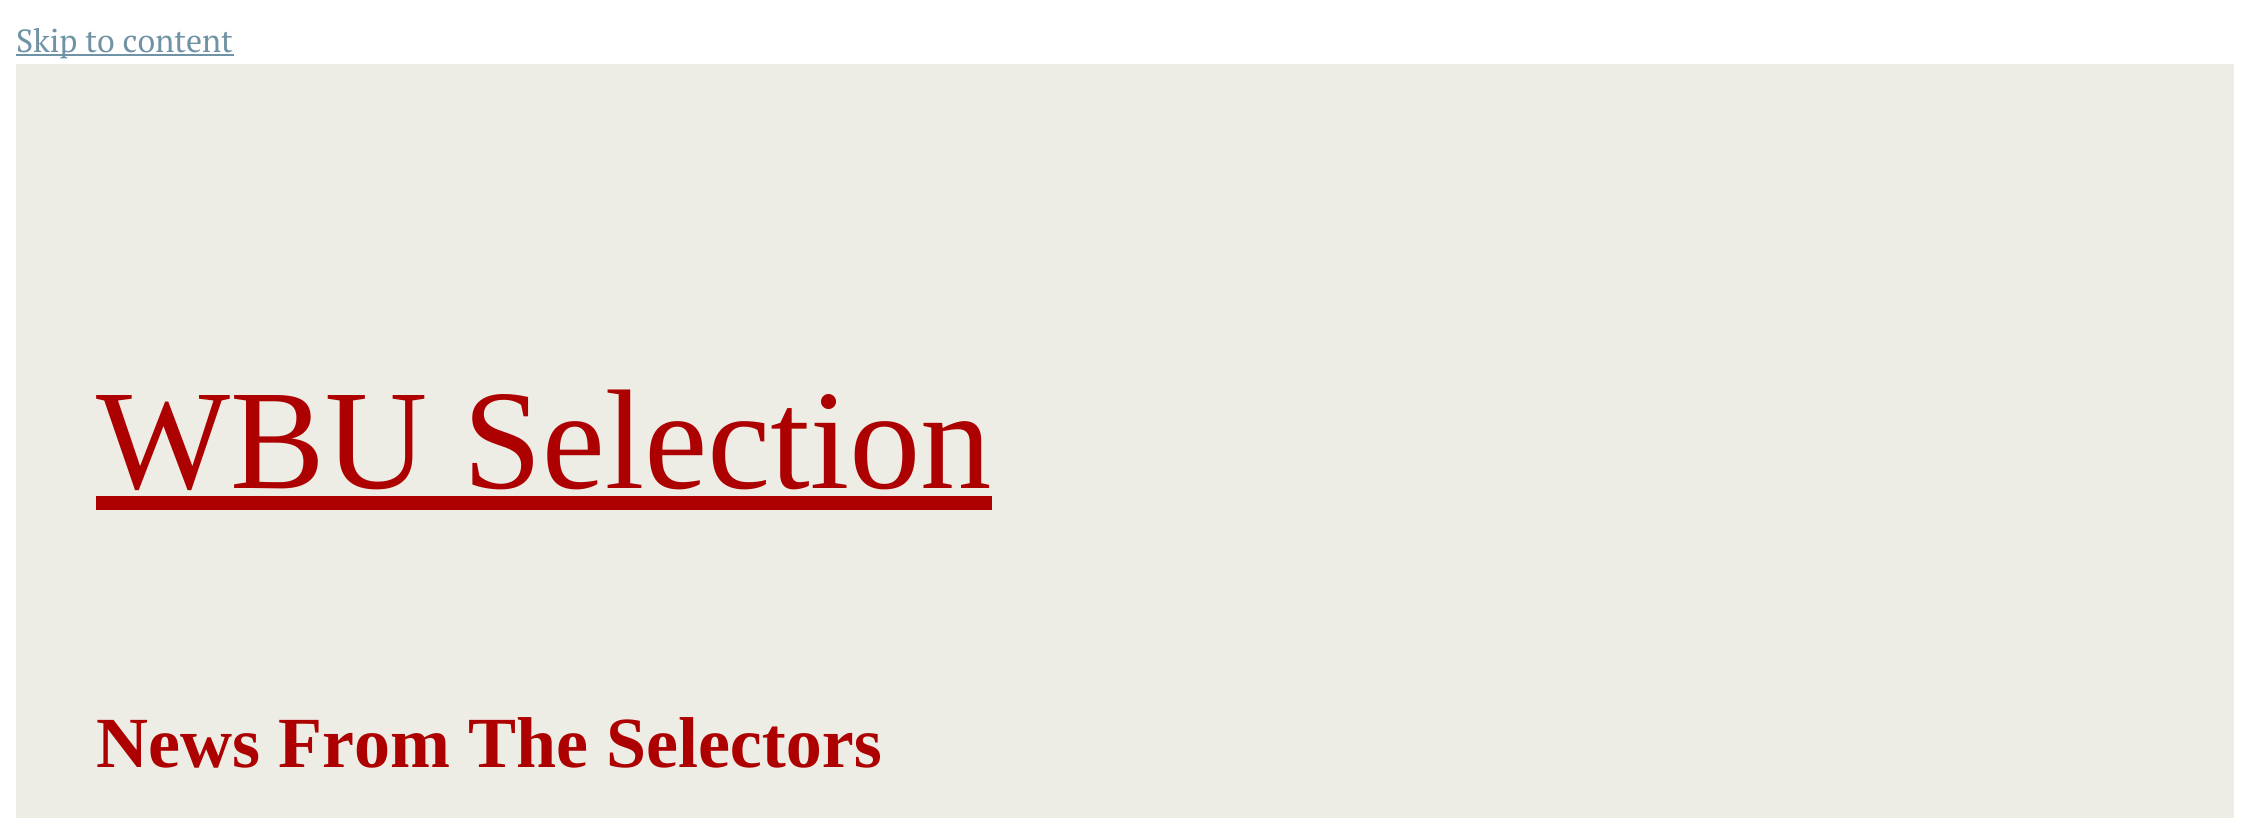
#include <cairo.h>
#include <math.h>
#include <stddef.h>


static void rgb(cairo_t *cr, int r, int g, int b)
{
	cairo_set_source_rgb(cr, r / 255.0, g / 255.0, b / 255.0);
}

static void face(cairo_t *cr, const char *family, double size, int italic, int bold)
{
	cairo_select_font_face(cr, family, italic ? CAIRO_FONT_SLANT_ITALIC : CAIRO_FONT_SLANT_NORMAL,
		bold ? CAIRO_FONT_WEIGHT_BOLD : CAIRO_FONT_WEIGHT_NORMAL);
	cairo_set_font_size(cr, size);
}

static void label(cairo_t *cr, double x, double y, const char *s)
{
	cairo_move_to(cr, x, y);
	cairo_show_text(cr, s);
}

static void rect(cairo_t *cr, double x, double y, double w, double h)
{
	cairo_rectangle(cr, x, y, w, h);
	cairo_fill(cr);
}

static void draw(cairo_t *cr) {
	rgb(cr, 255, 255, 255);
	cairo_paint(cr);
	rgb(cr, 112, 146, 165);
	rect(cr, 16, 54, 218, 2);
	face(cr, "PT Serif", 32, 0, 0);
	label(cr, 16, 52, "Skip to content");
	rgb(cr, 237, 236, 229);
	rect(cr, 16, 64, 2218, 754);
	face(cr, "Liberation Serif", 142, 0, 0);
	rgb(cr, 173, 0, 0);
	label(cr, 96, 488, "WBU Selection");
	rect(cr, 96, 496, 896, 14);
	face(cr, "Liberation Serif", 72, 0, 1);
	label(cr, 96, 767, "News From The Selectors");
}

int main(void) {
	cairo_surface_t *surface = cairo_image_surface_create(CAIRO_FORMAT_RGB24, 2249, 818);
	cairo_t *cr = cairo_create(surface);
	cairo_font_options_t *options = cairo_font_options_create();
	cairo_font_options_set_hint_metrics(options, CAIRO_HINT_METRICS_OFF);
	cairo_font_options_set_hint_style(options, CAIRO_HINT_STYLE_NONE);
	cairo_set_font_options(cr, options);
	cairo_set_miter_limit(cr, 4);
	draw(cr);
	cairo_surface_write_to_png(surface, "render.png");
	cairo_font_options_destroy(options);
	cairo_destroy(cr);
	cairo_surface_destroy(surface);
	return 0;
}
